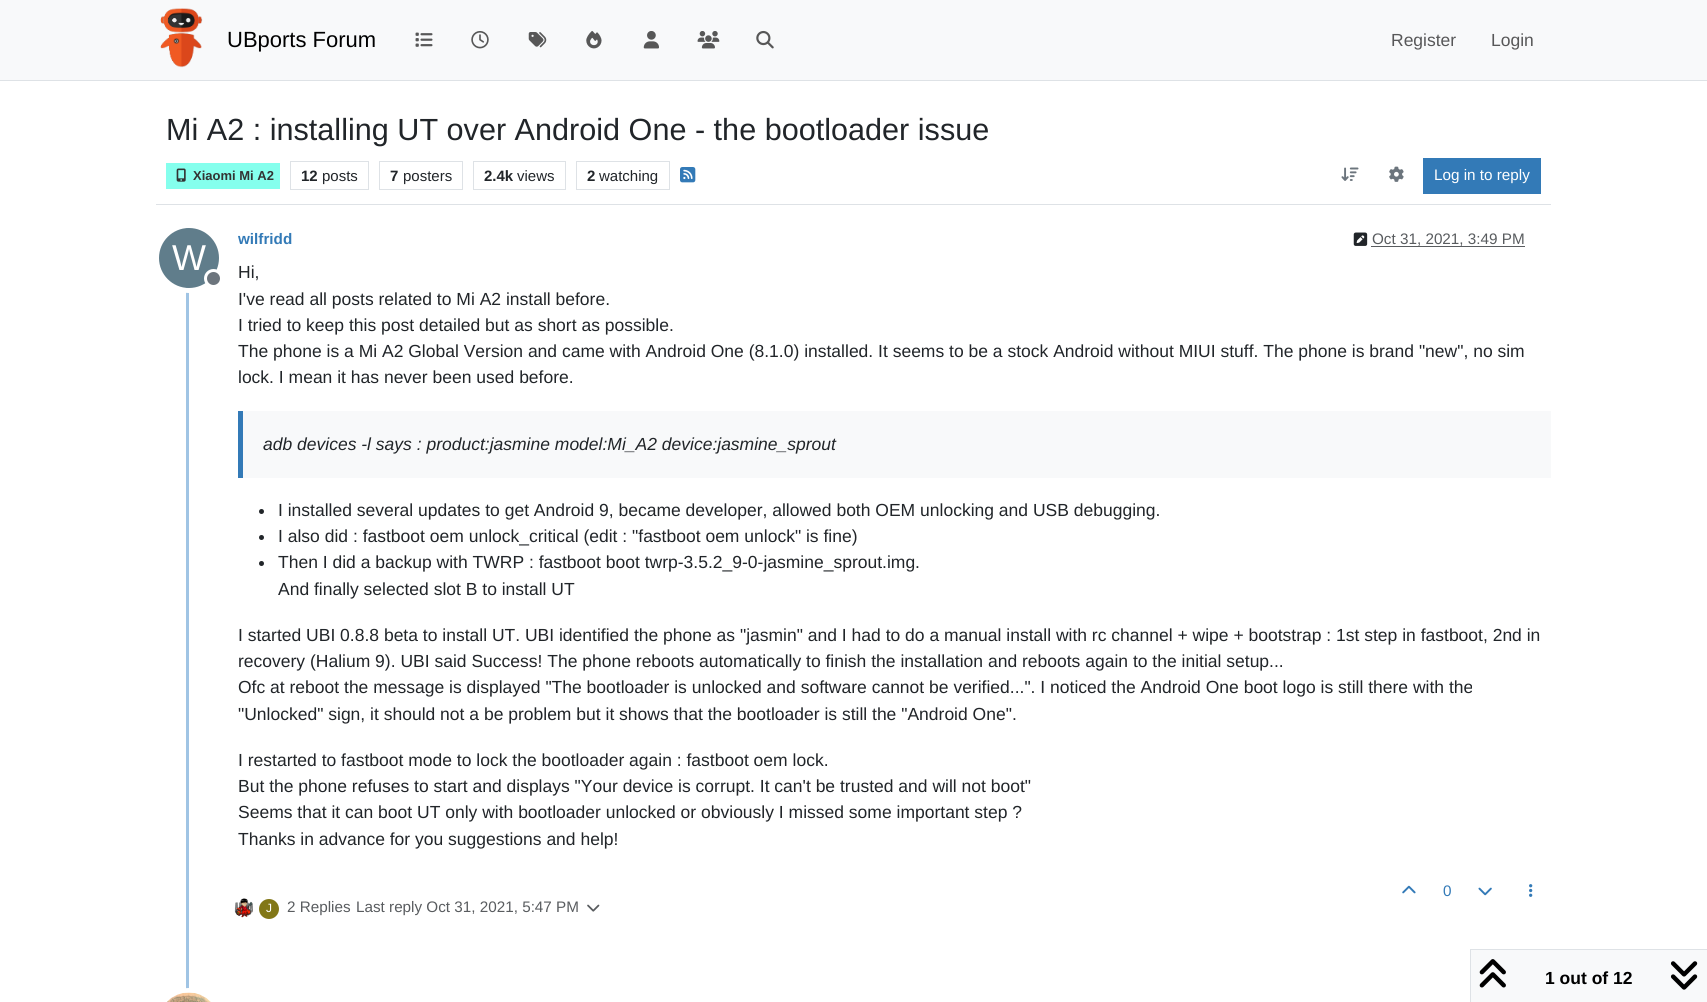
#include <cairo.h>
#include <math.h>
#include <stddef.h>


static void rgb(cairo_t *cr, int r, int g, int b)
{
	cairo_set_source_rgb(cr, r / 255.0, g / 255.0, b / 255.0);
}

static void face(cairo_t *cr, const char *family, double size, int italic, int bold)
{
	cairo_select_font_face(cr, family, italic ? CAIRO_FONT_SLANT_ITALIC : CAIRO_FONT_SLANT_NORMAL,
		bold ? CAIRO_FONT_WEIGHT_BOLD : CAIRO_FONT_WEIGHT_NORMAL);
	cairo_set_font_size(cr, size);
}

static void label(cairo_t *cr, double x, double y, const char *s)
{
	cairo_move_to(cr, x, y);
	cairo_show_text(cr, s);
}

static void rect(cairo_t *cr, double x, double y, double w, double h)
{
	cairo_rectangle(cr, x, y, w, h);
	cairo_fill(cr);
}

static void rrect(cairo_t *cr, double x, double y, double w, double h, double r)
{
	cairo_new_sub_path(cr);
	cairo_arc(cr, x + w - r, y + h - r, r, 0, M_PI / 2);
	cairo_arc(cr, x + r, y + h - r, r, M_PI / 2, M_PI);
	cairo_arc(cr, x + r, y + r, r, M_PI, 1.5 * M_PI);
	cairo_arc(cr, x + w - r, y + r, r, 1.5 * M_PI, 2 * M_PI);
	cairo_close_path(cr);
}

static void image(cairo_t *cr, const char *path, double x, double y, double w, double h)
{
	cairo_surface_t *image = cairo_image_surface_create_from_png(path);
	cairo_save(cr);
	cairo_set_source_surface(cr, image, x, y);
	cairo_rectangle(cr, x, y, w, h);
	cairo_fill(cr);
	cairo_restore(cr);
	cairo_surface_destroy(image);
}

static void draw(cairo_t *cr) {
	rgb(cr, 255, 255, 255);
	cairo_paint(cr);
	rgb(cr, 248, 249, 250);
	rect(cr, 0, 0, 1707, 80);
	rgb(cr, 222, 226, 230);
	rect(cr, 0, 80, 1707, 1);
	image(cr, "image0.png", 160, 8, 43, 60);
	face(cr, "Liberation Sans", 22, 0, 0);
	rgb(cr, 0, 0, 0);
	label(cr, 227, 47, "UBports Forum");
	image(cr, "image1.png", 415, 32, 18, 15);
	image(cr, "image2.png", 471, 31, 18, 18);
	image(cr, "image3.png", 528, 32, 19, 16);
	image(cr, "image4.png", 586, 31, 16, 18);
	image(cr, "image5.png", 643, 31, 16, 18);
	image(cr, "image6.png", 697, 31, 23, 18);
	image(cr, "image7.png", 756, 30, 18, 19);
	face(cr, "Liberation Sans", 17.5, 0, 0);
	rgb(cr, 87, 87, 88);
	label(cr, 1391, 46, "Register");
	label(cr, 1491, 46, "Login");
	rgb(cr, 222, 226, 230);
	rect(cr, 156, 204, 1395, 1);
	face(cr, "Liberation Sans", 30.6, 0, 0);
	rgb(cr, 33, 37, 41);
	label(cr, 166, 140, "Mi A2 : installing UT over Android One - the bootloader issue");
	rgb(cr, 133, 255, 237);
	rect(cr, 166, 163, 114, 26);
	image(cr, "image8.png", 176, 168, 10, 14);
	face(cr, "Liberation Sans", 13, 0, 1);
	rgb(cr, 51, 51, 51);
	label(cr, 193, 180, "Xiaomi Mi A2");
	cairo_rectangle(cr, 290.5, 161.5, 78, 28);
	rgb(cr, 222, 226, 230);
	cairo_set_line_width(cr, 1);
	cairo_stroke(cr);
	face(cr, "Liberation Sans", 15, 0, 1);
	rgb(cr, 33, 37, 41);
	label(cr, 301, 181, "12");
	face(cr, "Liberation Sans", 15, 0, 0);
	label(cr, 322, 181, "posts");
	cairo_rectangle(cr, 379.5, 161.5, 83, 28);
	rgb(cr, 222, 226, 230);
	cairo_stroke(cr);
	face(cr, "Liberation Sans", 15, 0, 1);
	rgb(cr, 33, 37, 41);
	label(cr, 390, 181, "7");
	face(cr, "Liberation Sans", 15, 0, 0);
	label(cr, 403, 181, "posters");
	cairo_rectangle(cr, 473.5, 161.5, 92, 28);
	rgb(cr, 222, 226, 230);
	cairo_stroke(cr);
	face(cr, "Liberation Sans", 15, 0, 1);
	rgb(cr, 33, 37, 41);
	label(cr, 484, 181, "2.4k");
	face(cr, "Liberation Sans", 15, 0, 0);
	label(cr, 517, 181, "views");
	cairo_rectangle(cr, 576.5, 161.5, 93, 28);
	rgb(cr, 222, 226, 230);
	cairo_stroke(cr);
	face(cr, "Liberation Sans", 15, 0, 1);
	rgb(cr, 33, 37, 41);
	label(cr, 587, 181, "2");
	face(cr, "Liberation Sans", 15, 0, 0);
	label(cr, 599, 181, "watching");
	image(cr, "image9.png", 680, 167, 16, 16);
	image(cr, "image10.png", 1341, 167, 18, 14);
	image(cr, "image11.png", 1389, 166, 15, 16);
	rgb(cr, 51, 122, 183);
	rect(cr, 1423, 158, 118, 36);
	face(cr, "Liberation Sans", 15.25, 0, 0);
	rgb(cr, 255, 255, 255);
	label(cr, 1434, 180, "Log in to reply");
	rgb(cr, 160, 196, 228);
	rect(cr, 186, 225, 3, 764);
	face(cr, "Liberation Sans", 15.25, 0, 1);
	rgb(cr, 51, 122, 183);
	label(cr, 238, 244, "wilfridd");
	image(cr, "image12.png", 1353, 232, 15, 14);
	face(cr, "Liberation Sans", 15.25, 0, 0);
	rgb(cr, 89, 92, 95);
	label(cr, 1372, 244, "Oct 31, 2021, 3:49 PM");
	rect(cr, 1371, 246, 154, 1);
	cairo_new_path(cr);
	cairo_arc(cr, 189, 258, 32.5, 0, 2 * M_PI);
	rgb(cr, 255, 255, 255);
	cairo_set_line_width(cr, 5);
	cairo_stroke(cr);
	rgb(cr, 96, 125, 139);
	cairo_arc(cr, 189, 258, 30, 0, 2 * M_PI);
	cairo_fill(cr);
	face(cr, "Liberation Sans", 36, 0, 0);
	rgb(cr, 255, 255, 255);
	label(cr, 172, 270, "W");
	rgb(cr, 108, 117, 125);
	cairo_new_path(cr);
	cairo_arc(cr, 213.5, 278.5, 8, 0, 2 * M_PI);
	cairo_fill_preserve(cr);
	rgb(cr, 255, 255, 255);
	cairo_set_line_width(cr, 3);
	cairo_stroke(cr);
	face(cr, "Liberation Sans", 17.5, 0, 0);
	rgb(cr, 33, 37, 41);
	label(cr, 238, 278, "Hi,");
	label(cr, 238, 305, "I've read all posts related to Mi A2 install before.");
	label(cr, 238, 331, "I tried to keep this post detailed but as short as possible.");
	label(cr, 238, 357, "The phone is a Mi A2 Global Version and came with Android One (8.1.0) installed. It seems to be a stock Android without MIUI stuff. The phone is brand \"new\", no sim");
	label(cr, 238, 383, "lock. I mean it has never been used before.");
	rgb(cr, 248, 249, 250);
	rect(cr, 243, 411, 1308, 67);
	rgb(cr, 51, 122, 183);
	rect(cr, 238, 411, 5, 67);
	face(cr, "Liberation Sans", 17.5, 1, 0);
	rgb(cr, 33, 37, 41);
	label(cr, 263, 450, "adb devices -l says : product:jasmine model:Mi_A2 device:jasmine_sprout");
	cairo_new_path(cr);
	cairo_arc(cr, 261.5, 511.5, 2.5, 0, 2 * M_PI);
	cairo_fill(cr);
	face(cr, "Liberation Sans", 17.5, 0, 0);
	label(cr, 278, 516, "I installed several updates to get Android 9, became developer, allowed both OEM unlocking and USB debugging.");
	cairo_new_path(cr);
	cairo_arc(cr, 261.5, 537.5, 2.5, 0, 2 * M_PI);
	cairo_fill(cr);
	label(cr, 278, 542, "I also did : fastboot oem unlock_critical (edit : \"fastboot oem unlock\" is fine)");
	cairo_new_path(cr);
	cairo_arc(cr, 261.5, 563.5, 2.5, 0, 2 * M_PI);
	cairo_fill(cr);
	label(cr, 278, 568, "Then I did a backup with TWRP : fastboot boot twrp-3.5.2_9-0-jasmine_sprout.img.");
	label(cr, 278, 595, "And finally selected slot B to install UT");
	label(cr, 238, 641, "I started UBI 0.8.8 beta to install UT. UBI identified the phone as \"jasmin\" and I had to do a manual install with rc channel + wipe + bootstrap : 1st step in fastboot, 2nd in");
	label(cr, 238, 667, "recovery (Halium 9). UBI said Success! The phone reboots automatically to finish the installation and reboots again to the initial setup...");
	label(cr, 238, 693, "Ofc at reboot the message is displayed \"The bootloader is unlocked and software cannot be verified...\". I noticed the Android One boot logo is still there with the");
	label(cr, 238, 720, "\"Unlocked\" sign, it should not a be problem but it shows that the bootloader is still the \"Android One\".");
	label(cr, 238, 766, "I restarted to fastboot mode to lock the bootloader again : fastboot oem lock.");
	label(cr, 238, 792, "But the phone refuses to start and displays \"Your device is corrupt. It can't be trusted and will not boot\"");
	label(cr, 238, 818, "Seems that it can boot UT only with bootloader unlocked or obviously I missed some important step ?");
	label(cr, 238, 845, "Thanks in advance for you suggestions and help!");
	image(cr, "image13.png", 1402, 885, 14, 9);
	face(cr, "Liberation Sans", 15.25, 0, 0);
	rgb(cr, 51, 122, 183);
	label(cr, 1443, 896, "0");
	image(cr, "image14.png", 1478, 887, 14, 9);
	image(cr, "image15.png", 1529, 884, 4, 13);
	image(cr, "image16.png", 234, 898, 19, 20);
	rgb(cr, 130, 119, 23);
	cairo_arc(cr, 269, 909, 10, 0, 2 * M_PI);
	cairo_fill(cr);
	face(cr, "Liberation Sans", 12, 0, 0);
	rgb(cr, 255, 255, 255);
	label(cr, 266, 912, "J");
	face(cr, "Liberation Sans", 15.25, 0, 0);
	rgb(cr, 89, 92, 95);
	label(cr, 287, 912, "2 Replies");
	label(cr, 356, 912, "Last reply Oct 31, 2021, 5:47 PM");
	image(cr, "image17.png", 587, 904, 13, 8);
	rrect(cr, 156.5, 990.5, 65, 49, 32.5);
	rgb(cr, 255, 255, 255);
	cairo_set_line_width(cr, 5);
	cairo_stroke(cr);
	image(cr, "image18.png", 167, 992, 44, 10);
	rgb(cr, 248, 249, 250);
	cairo_rectangle(cr, 1470.5, 949.5, 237, 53);
	cairo_fill_preserve(cr);
	rgb(cr, 222, 226, 230);
	cairo_set_line_width(cr, 1);
	cairo_stroke(cr);
	image(cr, "image19.png", 1479, 959, 27, 29);
	face(cr, "Liberation Sans", 17.5, 0, 1);
	rgb(cr, 0, 0, 0);
	label(cr, 1545, 984, "1 out of 12");
	image(cr, "image20.png", 1670, 961, 28, 29);
}

int main(void) {
	cairo_surface_t *surface = cairo_image_surface_create(CAIRO_FORMAT_RGB24, 1707, 1002);
	cairo_t *cr = cairo_create(surface);
	cairo_font_options_t *options = cairo_font_options_create();
	cairo_font_options_set_hint_metrics(options, CAIRO_HINT_METRICS_OFF);
	cairo_font_options_set_hint_style(options, CAIRO_HINT_STYLE_NONE);
	cairo_set_font_options(cr, options);
	cairo_set_miter_limit(cr, 4);
	draw(cr);
	cairo_surface_write_to_png(surface, "render.png");
	cairo_font_options_destroy(options);
	cairo_destroy(cr);
	cairo_surface_destroy(surface);
	return 0;
}
